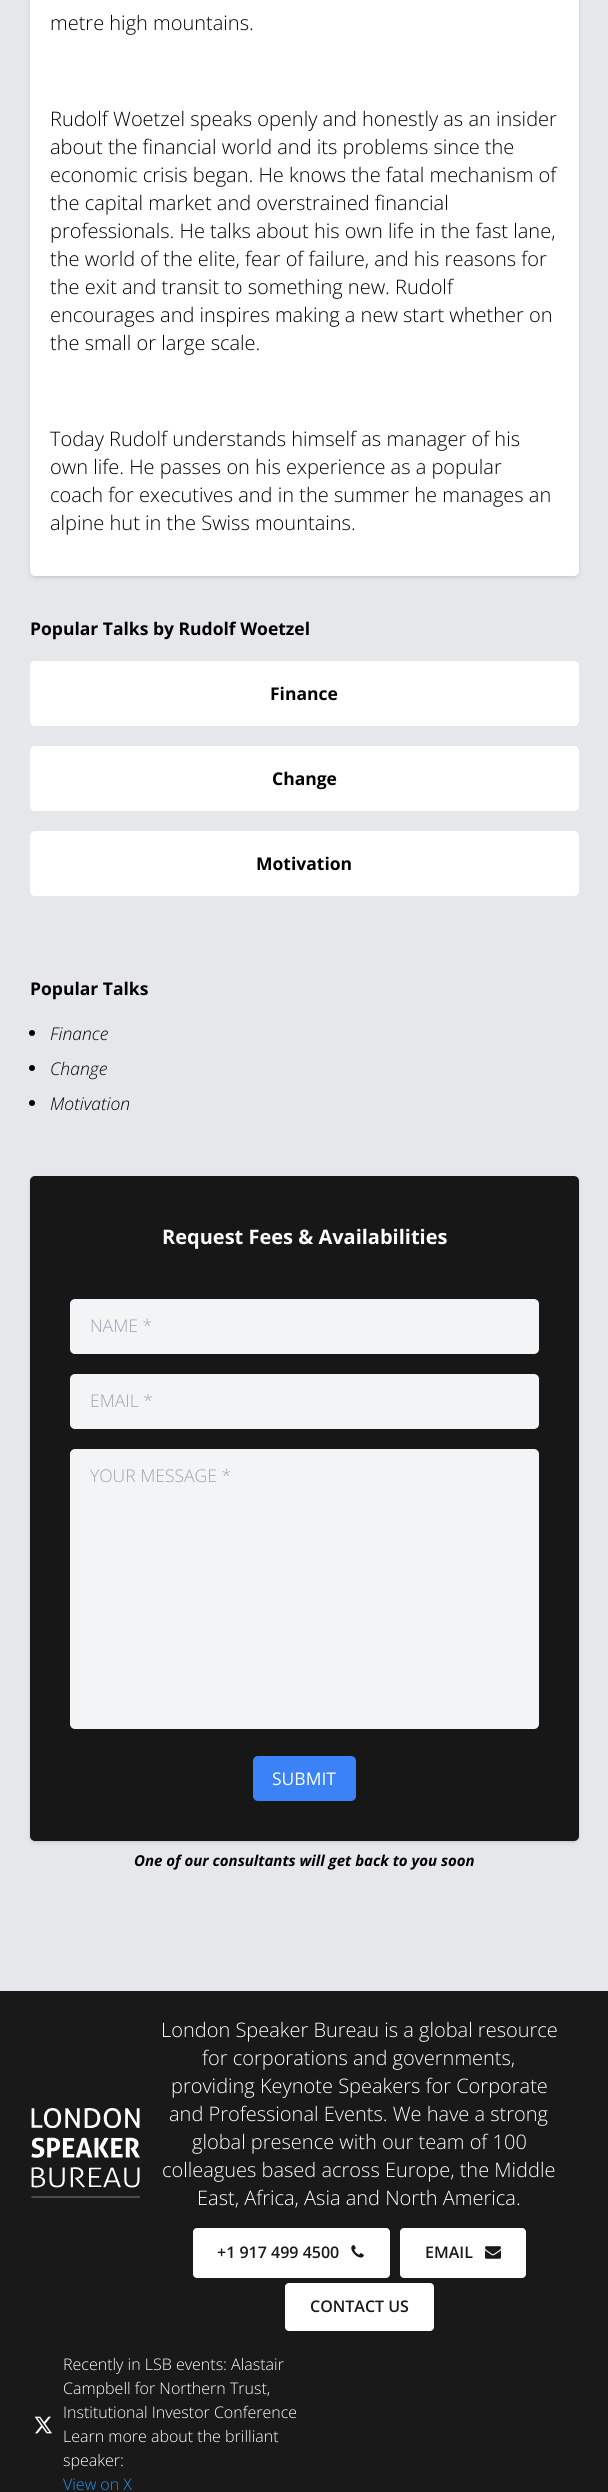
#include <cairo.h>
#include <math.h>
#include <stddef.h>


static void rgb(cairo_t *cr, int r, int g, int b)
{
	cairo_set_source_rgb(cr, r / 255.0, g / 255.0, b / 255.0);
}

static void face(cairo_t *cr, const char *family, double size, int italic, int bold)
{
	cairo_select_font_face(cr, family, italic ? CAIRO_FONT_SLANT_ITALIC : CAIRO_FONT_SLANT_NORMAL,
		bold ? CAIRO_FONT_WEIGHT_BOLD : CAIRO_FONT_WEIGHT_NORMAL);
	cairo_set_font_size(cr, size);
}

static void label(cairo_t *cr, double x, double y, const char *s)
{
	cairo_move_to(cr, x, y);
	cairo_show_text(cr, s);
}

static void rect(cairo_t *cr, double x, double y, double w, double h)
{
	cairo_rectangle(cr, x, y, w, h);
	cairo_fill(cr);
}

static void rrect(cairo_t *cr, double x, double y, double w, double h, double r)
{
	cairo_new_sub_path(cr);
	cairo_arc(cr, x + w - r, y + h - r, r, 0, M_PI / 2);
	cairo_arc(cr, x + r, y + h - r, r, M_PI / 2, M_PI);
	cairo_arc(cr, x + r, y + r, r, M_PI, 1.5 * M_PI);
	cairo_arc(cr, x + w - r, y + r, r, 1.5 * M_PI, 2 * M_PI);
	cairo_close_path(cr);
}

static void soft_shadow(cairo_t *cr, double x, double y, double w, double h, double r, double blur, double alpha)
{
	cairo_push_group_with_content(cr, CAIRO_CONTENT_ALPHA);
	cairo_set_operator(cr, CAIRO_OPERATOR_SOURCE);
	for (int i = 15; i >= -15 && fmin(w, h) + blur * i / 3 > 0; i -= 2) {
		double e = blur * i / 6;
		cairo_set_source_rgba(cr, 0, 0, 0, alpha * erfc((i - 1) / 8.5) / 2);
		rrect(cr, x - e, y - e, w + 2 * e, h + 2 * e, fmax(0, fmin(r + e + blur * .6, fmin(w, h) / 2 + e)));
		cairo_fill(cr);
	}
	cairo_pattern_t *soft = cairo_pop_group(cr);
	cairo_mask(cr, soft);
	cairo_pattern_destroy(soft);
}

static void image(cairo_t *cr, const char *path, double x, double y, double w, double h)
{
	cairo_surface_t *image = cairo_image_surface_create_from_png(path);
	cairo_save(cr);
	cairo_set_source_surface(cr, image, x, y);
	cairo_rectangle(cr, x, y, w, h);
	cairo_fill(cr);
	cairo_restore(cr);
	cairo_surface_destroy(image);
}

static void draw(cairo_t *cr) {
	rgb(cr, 25, 25, 25);
	cairo_paint(cr);
	rgb(cr, 229, 231, 235);
	rect(cr, 0, 0, 608, 1991);
	rgb(cr, 0, 0, 0);
	soft_shadow(cr, 31, -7, 547, 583, 4, 1, 0.1);
	soft_shadow(cr, 30, -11, 549, 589, 5, 2, 0.1);
	rgb(cr, 255, 255, 255);
	rrect(cr, 30, -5, 549, 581, 5);
	cairo_fill(cr);
	face(cr, "Open Sans Light", 20, 0, 0);
	rgb(cr, 0, 0, 0);
	label(cr, 50, 30, "metre high mountains.");
	label(cr, 50, 126, "Rudolf Woetzel speaks openly and honestly as an insider");
	label(cr, 50, 154, "about the financial world and its problems since the");
	label(cr, 50, 182, "economic crisis began. He knows the fatal mechanism of");
	label(cr, 50, 210, "the capital market and overstrained financial");
	label(cr, 50, 238, "professionals. He talks about his own life in the fast lane,");
	label(cr, 50, 266, "the world of the elite, fear of failure, and his reasons for");
	label(cr, 50, 294, "the exit and transit to something new. Rudolf");
	label(cr, 50, 322, "encourages and inspires making a new start whether on");
	label(cr, 50, 350, "the small or large scale.");
	label(cr, 50, 446, "Today Rudolf understands himself as manager of his");
	label(cr, 50, 474, "own life. He passes on his experience as a popular");
	label(cr, 50, 502, "coach for executives and in the summer he manages an");
	label(cr, 50, 530, "alpine hut in the Swiss mountains.");
	face(cr, "Open Sans", 17.5, 0, 1);
	label(cr, 30, 635, "Popular Talks by Rudolf Woetzel");
	rgb(cr, 255, 255, 255);
	rrect(cr, 30, 661, 549, 65, 5);
	cairo_fill(cr);
	rgb(cr, 0, 0, 0);
	label(cr, 270, 700, "Finance");
	rgb(cr, 255, 255, 255);
	rrect(cr, 30, 746, 549, 65, 5);
	cairo_fill(cr);
	rgb(cr, 0, 0, 0);
	label(cr, 272, 785, "Change");
	rgb(cr, 255, 255, 255);
	rrect(cr, 30, 831, 549, 65, 5);
	cairo_fill(cr);
	rgb(cr, 0, 0, 0);
	label(cr, 256, 870, "Motivation");
	label(cr, 30, 995, "Popular Talks");
	cairo_new_path(cr);
	cairo_arc(cr, 32, 1033, 3, 0, 2 * M_PI);
	cairo_fill(cr);
	face(cr, "Open Sans Light", 17.5, 1, 0);
	label(cr, 50, 1040, "Finance");
	cairo_new_path(cr);
	cairo_arc(cr, 32, 1068, 3, 0, 2 * M_PI);
	cairo_fill(cr);
	label(cr, 50, 1075, "Change");
	cairo_new_path(cr);
	cairo_arc(cr, 32, 1103, 3, 0, 2 * M_PI);
	cairo_fill(cr);
	label(cr, 50, 1110, "Motivation");
	rgb(cr, 0, 0, 0);
	soft_shadow(cr, 31, 1179, 547, 662, 4, 1, 0.1);
	soft_shadow(cr, 30, 1178, 549, 665, 5, 2, 0.1);
	rgb(cr, 23, 23, 23);
	rrect(cr, 30, 1176, 549, 665, 5);
	cairo_fill(cr);
	face(cr, "Open Sans", 20, 0, 1);
	rgb(cr, 255, 255, 255);
	label(cr, 162, 1244, "Request Fees & Availabilities");
	rgb(cr, 243, 244, 246);
	rrect(cr, 70, 1299, 469, 55, 5);
	cairo_fill(cr);
	face(cr, "Open Sans Light", 17.5, 0, 0);
	rgb(cr, 156, 163, 175);
	label(cr, 90, 1332, "NAME *");
	rgb(cr, 243, 244, 246);
	rrect(cr, 70, 1374, 469, 55, 5);
	cairo_fill(cr);
	rgb(cr, 156, 163, 175);
	label(cr, 90, 1407, "EMAIL *");
	rgb(cr, 243, 244, 246);
	rrect(cr, 70, 1449, 469, 280, 5);
	cairo_fill(cr);
	rgb(cr, 156, 163, 175);
	label(cr, 90, 1482, "YOUR MESSAGE *");
	rgb(cr, 59, 130, 246);
	rrect(cr, 253, 1756, 103, 45, 5);
	cairo_fill(cr);
	face(cr, "Open Sans", 17.5, 0, 0);
	rgb(cr, 255, 255, 255);
	label(cr, 272, 1785, "SUBMIT");
	face(cr, "Open Sans", 15, 1, 1);
	rgb(cr, 0, 0, 0);
	label(cr, 134, 1866, "One of our consultants will get back to you soon");
	image(cr, "image0.png", 31, 2108, 109, 90);
	face(cr, "Open Sans Light", 20, 0, 0);
	rgb(cr, 255, 255, 255);
	label(cr, 161, 2037, "London Speaker Bureau is a global resource");
	label(cr, 202, 2065, "for corporations and governments,");
	label(cr, 171, 2093, "providing Keynote Speakers for Corporate");
	label(cr, 169, 2121, "and Professional Events. We have a strong");
	label(cr, 192, 2149, "global presence with our team of 100");
	label(cr, 162, 2177, "colleagues based across Europe, the Middle");
	label(cr, 197, 2205, "East, Africa, Asia and North America.");
	rrect(cr, 193, 2228, 197, 50, 4);
	cairo_fill(cr);
	face(cr, "Open Sans SemiBold", 16, 0, 0);
	rgb(cr, 25, 25, 25);
	label(cr, 217, 2258, "+1 917 499 4500");
	image(cr, "image1.png", 351, 2245, 13, 13);
	rgb(cr, 255, 255, 255);
	rrect(cr, 400, 2228, 126, 50, 4);
	cairo_fill(cr);
	rgb(cr, 25, 25, 25);
	label(cr, 425, 2258, "EMAIL");
	image(cr, "image2.png", 485, 2246, 16, 13);
	rgb(cr, 255, 255, 255);
	rrect(cr, 285, 2283, 149, 48, 4);
	cairo_fill(cr);
	rgb(cr, 25, 25, 25);
	label(cr, 310, 2312, "CONTACT US");
	image(cr, "image3.png", 34, 2416, 18, 18);
	face(cr, "Open Sans Light", 16, 0, 0);
	rgb(cr, 255, 255, 255);
	label(cr, 63, 2370, "Recently in LSB events: Alastair");
	label(cr, 63, 2394, "Campbell for Northern Trust,");
	label(cr, 63, 2418, "Institutional Investor Conference");
	label(cr, 63, 2442, "Learn more about the brilliant");
	label(cr, 63, 2466, "speaker:");
	rgb(cr, 33, 146, 243);
	label(cr, 63, 2490, "View on X");
}

int main(void) {
	cairo_surface_t *surface = cairo_image_surface_create(CAIRO_FORMAT_RGB24, 608, 2492);
	cairo_t *cr = cairo_create(surface);
	cairo_font_options_t *options = cairo_font_options_create();
	cairo_font_options_set_hint_metrics(options, CAIRO_HINT_METRICS_OFF);
	cairo_font_options_set_hint_style(options, CAIRO_HINT_STYLE_NONE);
	cairo_set_font_options(cr, options);
	cairo_set_miter_limit(cr, 4);
	draw(cr);
	cairo_surface_write_to_png(surface, "render.png");
	cairo_font_options_destroy(options);
	cairo_destroy(cr);
	cairo_surface_destroy(surface);
	return 0;
}
